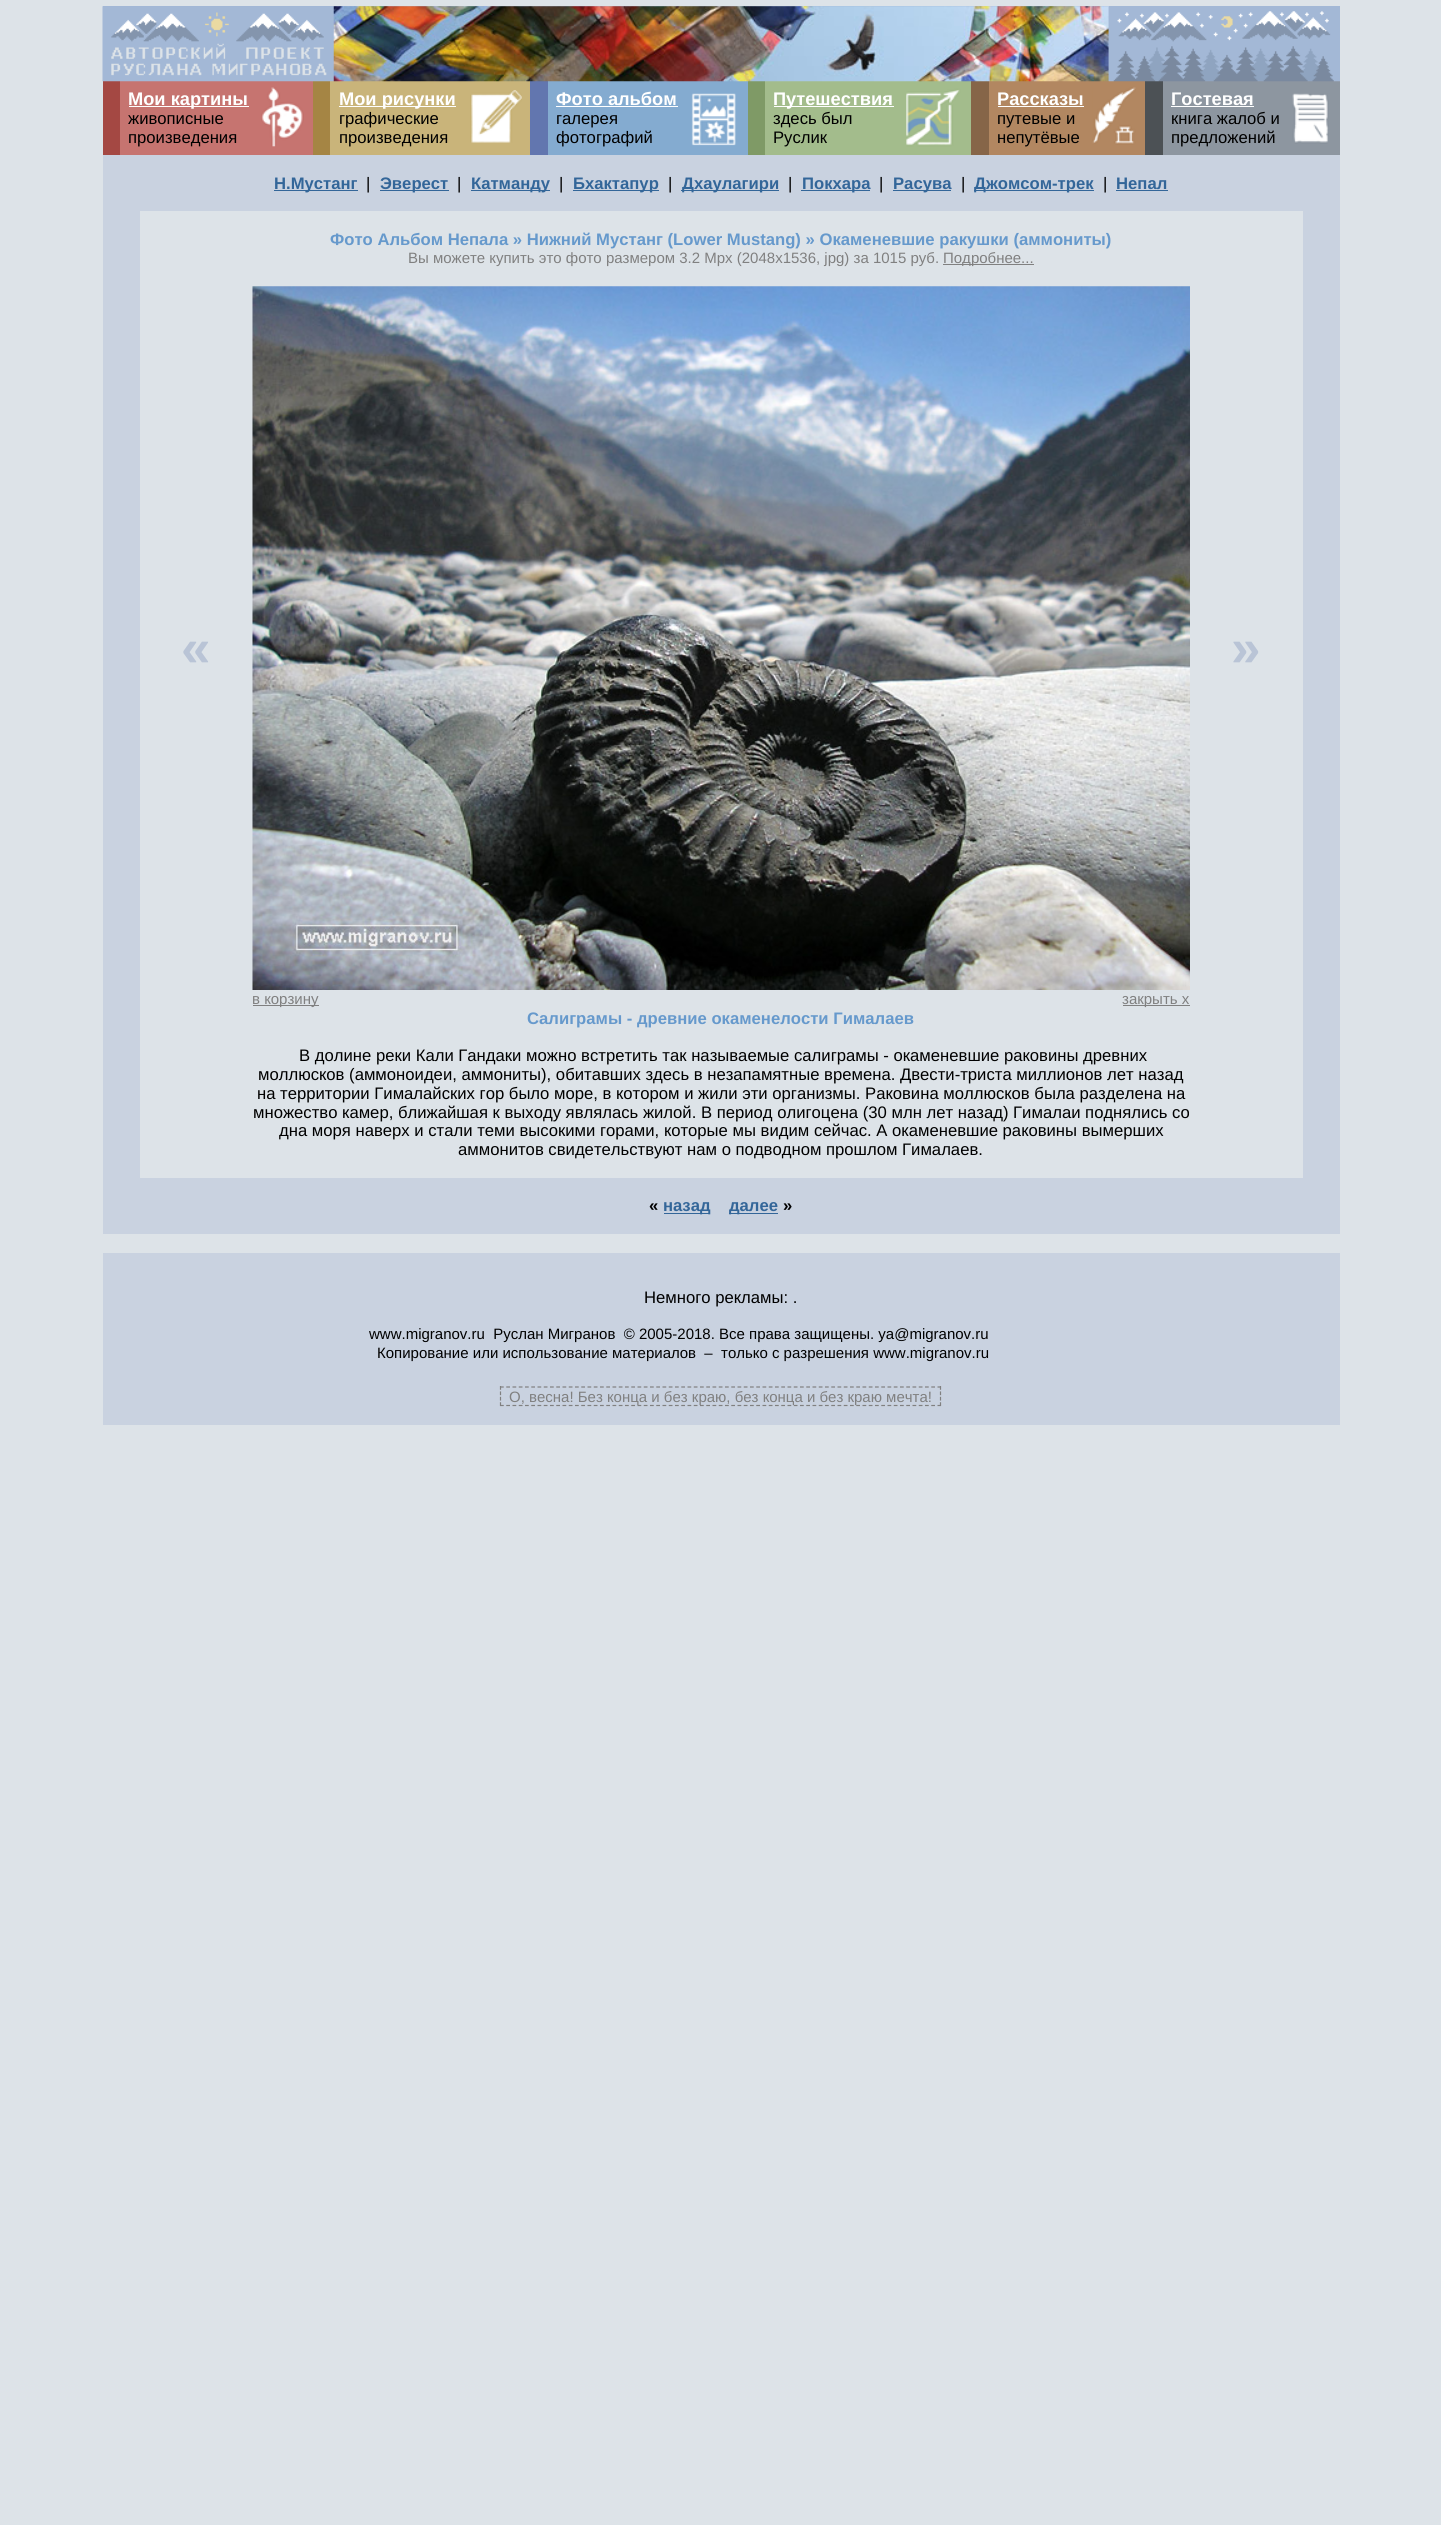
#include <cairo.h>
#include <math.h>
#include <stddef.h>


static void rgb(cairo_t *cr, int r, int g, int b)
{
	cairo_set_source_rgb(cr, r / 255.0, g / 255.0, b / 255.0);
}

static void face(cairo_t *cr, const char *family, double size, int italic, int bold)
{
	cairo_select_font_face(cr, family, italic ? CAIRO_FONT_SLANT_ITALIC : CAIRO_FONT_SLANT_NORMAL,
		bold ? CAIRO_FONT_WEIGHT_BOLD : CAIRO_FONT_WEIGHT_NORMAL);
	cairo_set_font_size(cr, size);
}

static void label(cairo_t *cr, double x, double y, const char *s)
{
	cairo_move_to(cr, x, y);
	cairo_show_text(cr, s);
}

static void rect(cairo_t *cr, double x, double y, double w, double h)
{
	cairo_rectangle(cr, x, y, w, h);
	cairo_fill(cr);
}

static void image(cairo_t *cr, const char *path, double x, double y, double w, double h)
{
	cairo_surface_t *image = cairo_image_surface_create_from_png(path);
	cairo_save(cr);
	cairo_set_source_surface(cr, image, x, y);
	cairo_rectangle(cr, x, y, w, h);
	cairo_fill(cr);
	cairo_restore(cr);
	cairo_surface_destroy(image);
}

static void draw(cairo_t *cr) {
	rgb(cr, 221, 227, 232);
	cairo_paint(cr);
	rgb(cr, 201, 210, 224);
	rect(cr, 103, 155, 1237, 56);
	rgb(cr, 163, 184, 214);
	rect(cr, 103, 6, 1237, 75);
	rgb(cr, 164, 72, 67);
	rect(cr, 103, 81, 17, 74);
	rgb(cr, 198, 116, 112);
	rect(cr, 120, 81, 193, 74);
	rgb(cr, 165, 133, 68);
	rect(cr, 313, 81, 17, 74);
	rgb(cr, 201, 180, 122);
	rect(cr, 330, 81, 200, 74);
	image(cr, "image0.png", 102, 6, 232, 76);
	rgb(cr, 98, 118, 175);
	rect(cr, 530, 81, 18, 74);
	rgb(cr, 132, 171, 208);
	rect(cr, 548, 81, 200, 74);
	rgb(cr, 127, 154, 102);
	rect(cr, 748, 81, 17, 74);
	rgb(cr, 163, 188, 140);
	rect(cr, 765, 81, 206, 74);
	image(cr, "image6.png", 906, 81, 65, 74);
	rgb(cr, 134, 101, 72);
	rect(cr, 971, 81, 18, 74);
	rgb(cr, 178, 135, 97);
	rect(cr, 989, 81, 156, 74);
	image(cr, "image1.png", 333, 6, 776, 76);
	rgb(cr, 76, 81, 85);
	rect(cr, 1145, 81, 18, 74);
	rgb(cr, 141, 150, 160);
	rect(cr, 1163, 81, 177, 74);
	image(cr, "image2.png", 1108, 7, 232, 75);
	rgb(cr, 255, 255, 255);
	rect(cr, 129, 106, 120, 1);
	face(cr, "Liberation Sans", 18.25, 0, 1);
	label(cr, 128, 105, "Мои картины");
	face(cr, "Liberation Sans", 16.67, 0, 0);
	rgb(cr, 0, 0, 0);
	label(cr, 128, 124, "живописные");
	label(cr, 128, 143, "произведения");
	image(cr, "image3.png", 261, 87, 43, 60);
	rgb(cr, 255, 255, 255);
	rect(cr, 339, 106, 117, 1);
	face(cr, "Liberation Sans", 18.25, 0, 1);
	label(cr, 339, 105, "Мои рисунки");
	face(cr, "Liberation Sans", 16.67, 0, 0);
	rgb(cr, 0, 0, 0);
	label(cr, 339, 124, "графические");
	label(cr, 339, 143, "произведения");
	image(cr, "image4.png", 470, 90, 52, 53);
	face(cr, "Liberation Sans", 18.25, 0, 1);
	rgb(cr, 255, 255, 255);
	label(cr, 556, 105, "Фото альбом");
	rect(cr, 556, 106, 122, 1);
	face(cr, "Liberation Sans", 16.67, 0, 0);
	rgb(cr, 0, 0, 0);
	label(cr, 556, 124, "галерея");
	label(cr, 556, 143, "фотографий");
	image(cr, "image5.png", 691, 93, 45, 53);
	rgb(cr, 255, 255, 255);
	rect(cr, 774, 106, 120, 1);
	face(cr, "Liberation Sans", 18.25, 0, 1);
	label(cr, 773, 105, "Путешествия");
	face(cr, "Liberation Sans", 16.67, 0, 0);
	rgb(cr, 0, 0, 0);
	label(cr, 773, 124, "здесь был");
	label(cr, 773, 143, "Руслик");
	face(cr, "Liberation Sans", 18.25, 0, 1);
	rgb(cr, 255, 255, 255);
	label(cr, 997, 105, "Рассказы");
	rect(cr, 998, 106, 86, 1);
	face(cr, "Liberation Sans", 16.67, 0, 0);
	rgb(cr, 0, 0, 0);
	label(cr, 997, 124, "путевые и");
	label(cr, 997, 143, "непутёвые");
	image(cr, "image7.png", 1092, 87, 44, 58);
	face(cr, "Liberation Sans", 18.25, 0, 1);
	rgb(cr, 255, 255, 255);
	label(cr, 1171, 105, "Гостевая");
	rect(cr, 1171, 106, 83, 1);
	face(cr, "Liberation Sans", 16.67, 0, 0);
	rgb(cr, 0, 0, 0);
	label(cr, 1171, 124, "книга жалоб и");
	label(cr, 1171, 143, "предложений");
	image(cr, "image8.png", 1292, 93, 37, 51);
	rgb(cr, 51, 102, 153);
	rect(cr, 274, 190, 84, 1);
	face(cr, "Liberation Sans", 16.67, 0, 1);
	label(cr, 274, 189, "Н.Мустанг");
	face(cr, "Liberation Sans", 16.67, 0, 0);
	rgb(cr, 0, 0, 0);
	label(cr, 366, 189, "|");
	rgb(cr, 51, 102, 153);
	rect(cr, 380, 190, 69, 1);
	face(cr, "Liberation Sans", 16.67, 0, 1);
	label(cr, 380, 189, "Эверест");
	face(cr, "Liberation Sans", 16.67, 0, 0);
	rgb(cr, 0, 0, 0);
	label(cr, 457, 189, "|");
	rgb(cr, 51, 102, 153);
	rect(cr, 471, 190, 79, 1);
	face(cr, "Liberation Sans", 16.67, 0, 1);
	label(cr, 471, 189, "Катманду");
	face(cr, "Liberation Sans", 16.67, 0, 0);
	rgb(cr, 0, 0, 0);
	label(cr, 559, 189, "|");
	rgb(cr, 51, 102, 153);
	rect(cr, 573, 190, 86, 1);
	face(cr, "Liberation Sans", 16.67, 0, 1);
	label(cr, 573, 189, "Бхактапур");
	face(cr, "Liberation Sans", 16.67, 0, 0);
	rgb(cr, 0, 0, 0);
	label(cr, 668, 189, "|");
	rgb(cr, 51, 102, 153);
	rect(cr, 681, 190, 98, 1);
	face(cr, "Liberation Sans", 16.67, 0, 1);
	label(cr, 682, 189, "Дхаулагири");
	face(cr, "Liberation Sans", 16.67, 0, 0);
	rgb(cr, 0, 0, 0);
	label(cr, 788, 189, "|");
	rgb(cr, 51, 102, 153);
	rect(cr, 801, 190, 69, 1);
	face(cr, "Liberation Sans", 16.67, 0, 1);
	label(cr, 802, 189, "Покхара");
	face(cr, "Liberation Sans", 16.67, 0, 0);
	rgb(cr, 0, 0, 0);
	label(cr, 879, 189, "|");
	rgb(cr, 51, 102, 153);
	rect(cr, 893, 190, 58, 1);
	face(cr, "Liberation Sans", 16.67, 0, 1);
	label(cr, 893, 189, "Расува");
	face(cr, "Liberation Sans", 16.67, 0, 0);
	rgb(cr, 0, 0, 0);
	label(cr, 961, 189, "|");
	rgb(cr, 51, 102, 153);
	rect(cr, 974, 190, 120, 1);
	face(cr, "Liberation Sans", 16.67, 0, 1);
	label(cr, 974, 189, "Джомсом-трек");
	face(cr, "Liberation Sans", 16.67, 0, 0);
	rgb(cr, 0, 0, 0);
	label(cr, 1103, 189, "|");
	face(cr, "Liberation Sans", 16.67, 0, 1);
	rgb(cr, 51, 102, 153);
	label(cr, 1116, 189, "Непал");
	rect(cr, 1116, 190, 52, 1);
	rgb(cr, 201, 210, 224);
	rect(cr, 103, 211, 37, 967);
	rgb(cr, 102, 153, 204);
	label(cr, 330, 245, "Фото Альбом Непала » Нижний Мустанг (Lower Mustang) » Окаменевшие ракушки (аммониты)");
	face(cr, "Liberation Sans", 15, 0, 0);
	rgb(cr, 128, 128, 128);
	label(cr, 408, 263, "Вы можете купить это фото размером 3.2 Mpx (2048x1536, jpg) за 1015 руб.");
	rect(cr, 943, 264, 91, 1);
	label(cr, 943, 263, "Подробнее...");
	rgb(cr, 201, 210, 224);
	rect(cr, 1303, 211, 37, 967);
	face(cr, "Liberation Sans", 53, 0, 1);
	rgb(cr, 185, 196, 214);
	label(cr, 181, 666, "«");
	label(cr, 1231, 666, "»");
	image(cr, "image9.png", 252, 286, 938, 704);
	rgb(cr, 128, 128, 128);
	rect(cr, 253, 1005, 66, 1);
	face(cr, "Liberation Sans", 15, 0, 0);
	label(cr, 252, 1004, "в корзину");
	rect(cr, 1123, 1005, 67, 1);
	label(cr, 1122, 1004, "закрыть x");
	face(cr, "Liberation Sans", 16.67, 0, 1);
	rgb(cr, 102, 153, 204);
	label(cr, 527, 1024, "Салиграмы - древние окаменелости Гималаев");
	face(cr, "Liberation Sans", 16.67, 0, 0);
	rgb(cr, 0, 0, 0);
	label(cr, 299, 1061, "В долине реки Кали Гандаки можно встретить так называемые салиграмы - окаменевшие раковины древних");
	label(cr, 258, 1080, "моллюсков (аммоноидеи, аммониты), обитавших здесь в незапамятные времена. Двести-триста миллионов лет назад");
	label(cr, 257, 1099, "на территории Гималайских гор было море, в котором и жили эти организмы. Раковина моллюсков была разделена на");
	label(cr, 253, 1118, "множество камер, ближайшая к выходу являлась жилой. В период олигоцена (30 млн лет назад) Гималаи поднялись со");
	label(cr, 279, 1136, "дна моря наверх и стали теми высокими горами, которые мы видим сейчас. А окаменевшие раковины вымерших");
	label(cr, 458, 1155, "аммонитов свидетельствуют нам о подводном прошлом Гималаев.");
	rgb(cr, 201, 210, 224);
	rect(cr, 103, 1178, 1237, 56);
	face(cr, "Liberation Sans", 16.67, 0, 1);
	rgb(cr, 0, 0, 0);
	label(cr, 649, 1211, "«");
	rgb(cr, 51, 102, 153);
	rect(cr, 664, 1213, 46, 1);
	label(cr, 663, 1211, "назад");
	rect(cr, 729, 1213, 49, 1);
	label(cr, 729, 1211, "далее");
	rgb(cr, 0, 0, 0);
	label(cr, 783, 1211, "»");
	rgb(cr, 201, 210, 224);
	rect(cr, 103, 1253, 1237, 172);
	face(cr, "Liberation Sans", 16.67, 0, 0);
	rgb(cr, 0, 0, 0);
	label(cr, 644, 1303, "Немного рекламы: .");
	face(cr, "Liberation Sans", 15, 0, 0);
	label(cr, 369, 1339, "www.migranov.ru  Руслан Мигранов  © 2005-2018. Все права защищены. ya@migranov.ru");
	label(cr, 377, 1358, "Копирование или использование материалов  –  только с разрешения www.migranov.ru");
	cairo_new_path(cr);
	cairo_move_to(cr, 500, 1387);
	cairo_line_to(cr, 941, 1387);
	rgb(cr, 128, 128, 128);
	cairo_set_line_width(cr, 1.2);
	cairo_set_dash(cr, (double[]){3.75, 2.5}, 2, 0);
	cairo_stroke(cr);
	cairo_new_path(cr);
	cairo_move_to(cr, 940.5, 1386);
	cairo_line_to(cr, 940.5, 1406);
	cairo_set_dash(cr, (double[]){3.75, 1.66}, 2, 0);
	cairo_stroke(cr);
	cairo_new_path(cr);
	cairo_move_to(cr, 500, 1405.5);
	cairo_line_to(cr, 941, 1405.5);
	cairo_set_dash(cr, (double[]){3.75, 2.5}, 2, 0);
	cairo_stroke(cr);
	label(cr, 509, 1402, "О, весна! Без конца и без краю, без конца и без краю мечта!");
	cairo_new_path(cr);
	cairo_move_to(cr, 500.5, 1386);
	cairo_line_to(cr, 500.5, 1406);
	cairo_set_dash(cr, (double[]){3.75, 1.66}, 2, 0);
	cairo_stroke(cr);
}

int main(void) {
	cairo_surface_t *surface = cairo_image_surface_create(CAIRO_FORMAT_RGB24, 1441, 2525);
	cairo_t *cr = cairo_create(surface);
	cairo_font_options_t *options = cairo_font_options_create();
	cairo_font_options_set_hint_metrics(options, CAIRO_HINT_METRICS_OFF);
	cairo_font_options_set_hint_style(options, CAIRO_HINT_STYLE_NONE);
	cairo_set_font_options(cr, options);
	cairo_set_miter_limit(cr, 4);
	draw(cr);
	cairo_surface_write_to_png(surface, "render.png");
	cairo_font_options_destroy(options);
	cairo_destroy(cr);
	cairo_surface_destroy(surface);
	return 0;
}
